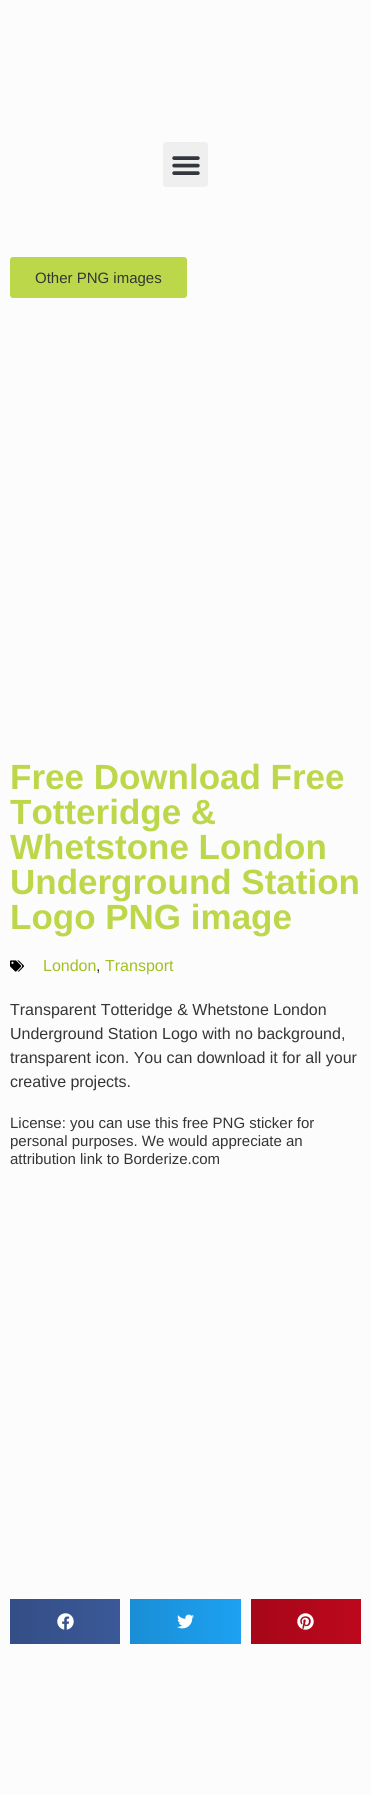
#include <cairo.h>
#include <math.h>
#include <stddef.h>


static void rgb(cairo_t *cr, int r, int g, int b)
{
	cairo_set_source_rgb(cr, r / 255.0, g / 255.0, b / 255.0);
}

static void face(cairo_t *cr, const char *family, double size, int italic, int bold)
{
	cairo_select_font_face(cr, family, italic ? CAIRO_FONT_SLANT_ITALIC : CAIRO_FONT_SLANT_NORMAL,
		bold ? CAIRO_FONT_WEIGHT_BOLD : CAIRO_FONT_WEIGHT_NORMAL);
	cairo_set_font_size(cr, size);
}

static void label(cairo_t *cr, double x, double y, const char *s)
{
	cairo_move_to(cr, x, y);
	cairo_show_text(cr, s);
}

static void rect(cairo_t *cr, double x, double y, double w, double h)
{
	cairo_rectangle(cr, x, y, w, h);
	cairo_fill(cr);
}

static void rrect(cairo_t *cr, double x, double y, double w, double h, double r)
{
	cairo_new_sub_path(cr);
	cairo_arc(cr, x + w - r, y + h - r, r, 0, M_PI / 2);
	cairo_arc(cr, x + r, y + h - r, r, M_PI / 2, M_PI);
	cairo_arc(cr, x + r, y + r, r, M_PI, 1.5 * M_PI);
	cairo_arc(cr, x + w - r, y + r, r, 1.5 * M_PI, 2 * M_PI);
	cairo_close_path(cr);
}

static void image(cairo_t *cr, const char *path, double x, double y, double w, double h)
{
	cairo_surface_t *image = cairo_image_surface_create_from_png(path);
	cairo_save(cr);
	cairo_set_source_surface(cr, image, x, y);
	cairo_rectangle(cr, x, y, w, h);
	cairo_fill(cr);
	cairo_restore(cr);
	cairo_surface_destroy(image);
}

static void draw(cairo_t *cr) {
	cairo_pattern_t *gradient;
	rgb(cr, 252, 252, 252);
	cairo_paint(cr);
	rgb(cr, 239, 239, 239);
	rrect(cr, 163, 142, 45, 45, 3);
	cairo_fill(cr);
	image(cr, "image0.png", 172, 156, 28, 19);
	rgb(cr, 188, 215, 74);
	rrect(cr, 10.5, 257.5, 176, 40, 2.5);
	cairo_fill_preserve(cr);
	cairo_set_line_width(cr, 1);
	cairo_stroke(cr);
	face(cr, "Liberation Sans", 15, 0, 0);
	rgb(cr, 53, 53, 53);
	label(cr, 35, 283, "Other PNG images");
	face(cr, "Liberation Sans", 35, 0, 1);
	rgb(cr, 188, 215, 74);
	label(cr, 10, 789, "Free Download Free");
	label(cr, 10, 824, "Totteridge &");
	label(cr, 10, 859, "Whetstone London");
	label(cr, 10, 894, "Underground Station");
	label(cr, 10, 929, "Logo PNG image");
	image(cr, "image1.png", 10, 960, 14, 12);
	face(cr, "Liberation Sans", 16, 0, 0);
	rgb(cr, 162, 192, 33);
	label(cr, 43, 971, "London");
	rgb(cr, 53, 53, 53);
	label(cr, 96, 971, ",");
	rgb(cr, 162, 192, 33);
	label(cr, 105, 971, "Transport");
	rgb(cr, 53, 53, 53);
	label(cr, 10, 1015, "Transparent Totteridge & Whetstone London");
	label(cr, 10, 1039, "Underground Station Logo with no background,");
	label(cr, 10, 1063, "transparent icon. You can download it for all your");
	label(cr, 10, 1087, "creative projects.");
	face(cr, "Liberation Sans", 15, 0, 0);
	label(cr, 10, 1128, "License: you can use this free PNG sticker for");
	label(cr, 10, 1146, "personal purposes. We would appreciate an");
	label(cr, 10, 1164, "attribution link to Borderize.com");
	gradient = cairo_pattern_create_linear(10, 1622, 120, 1622);
	cairo_pattern_add_color_stop_rgba(gradient, 0, 0.204, 0.306, 0.525, 1);
	cairo_pattern_add_color_stop_rgba(gradient, 1, 0.231, 0.349, 0.596, 1);
	cairo_set_source(cr, gradient);
	cairo_pattern_destroy(gradient);
	rect(cr, 10, 1599, 110, 45);
	image(cr, "image2.png", 57, 1613, 17, 17);
	gradient = cairo_pattern_create_linear(130, 1622, 241, 1622);
	cairo_pattern_add_color_stop_rgba(gradient, 0, 0.102, 0.557, 0.835, 1);
	cairo_pattern_add_color_stop_rgba(gradient, 1, 0.114, 0.631, 0.949, 1);
	cairo_set_source(cr, gradient);
	cairo_pattern_destroy(gradient);
	rect(cr, 130, 1599, 111, 45);
	image(cr, "image3.png", 177, 1614, 17, 15);
	gradient = cairo_pattern_create_linear(251, 1622, 361, 1622);
	cairo_pattern_add_color_stop_rgba(gradient, 0, 0.651, 0.027, 0.098, 1);
	cairo_pattern_add_color_stop_rgba(gradient, 1, 0.741, 0.031, 0.11, 1);
	cairo_set_source(cr, gradient);
	cairo_pattern_destroy(gradient);
	rect(cr, 251, 1599, 110, 45);
	image(cr, "image4.png", 297, 1613, 17, 17);
}

int main(void) {
	cairo_surface_t *surface = cairo_image_surface_create(CAIRO_FORMAT_RGB24, 371, 1794);
	cairo_t *cr = cairo_create(surface);
	cairo_font_options_t *options = cairo_font_options_create();
	cairo_font_options_set_hint_metrics(options, CAIRO_HINT_METRICS_OFF);
	cairo_font_options_set_hint_style(options, CAIRO_HINT_STYLE_NONE);
	cairo_set_font_options(cr, options);
	cairo_set_miter_limit(cr, 4);
	draw(cr);
	cairo_surface_write_to_png(surface, "render.png");
	cairo_font_options_destroy(options);
	cairo_destroy(cr);
	cairo_surface_destroy(surface);
	return 0;
}
